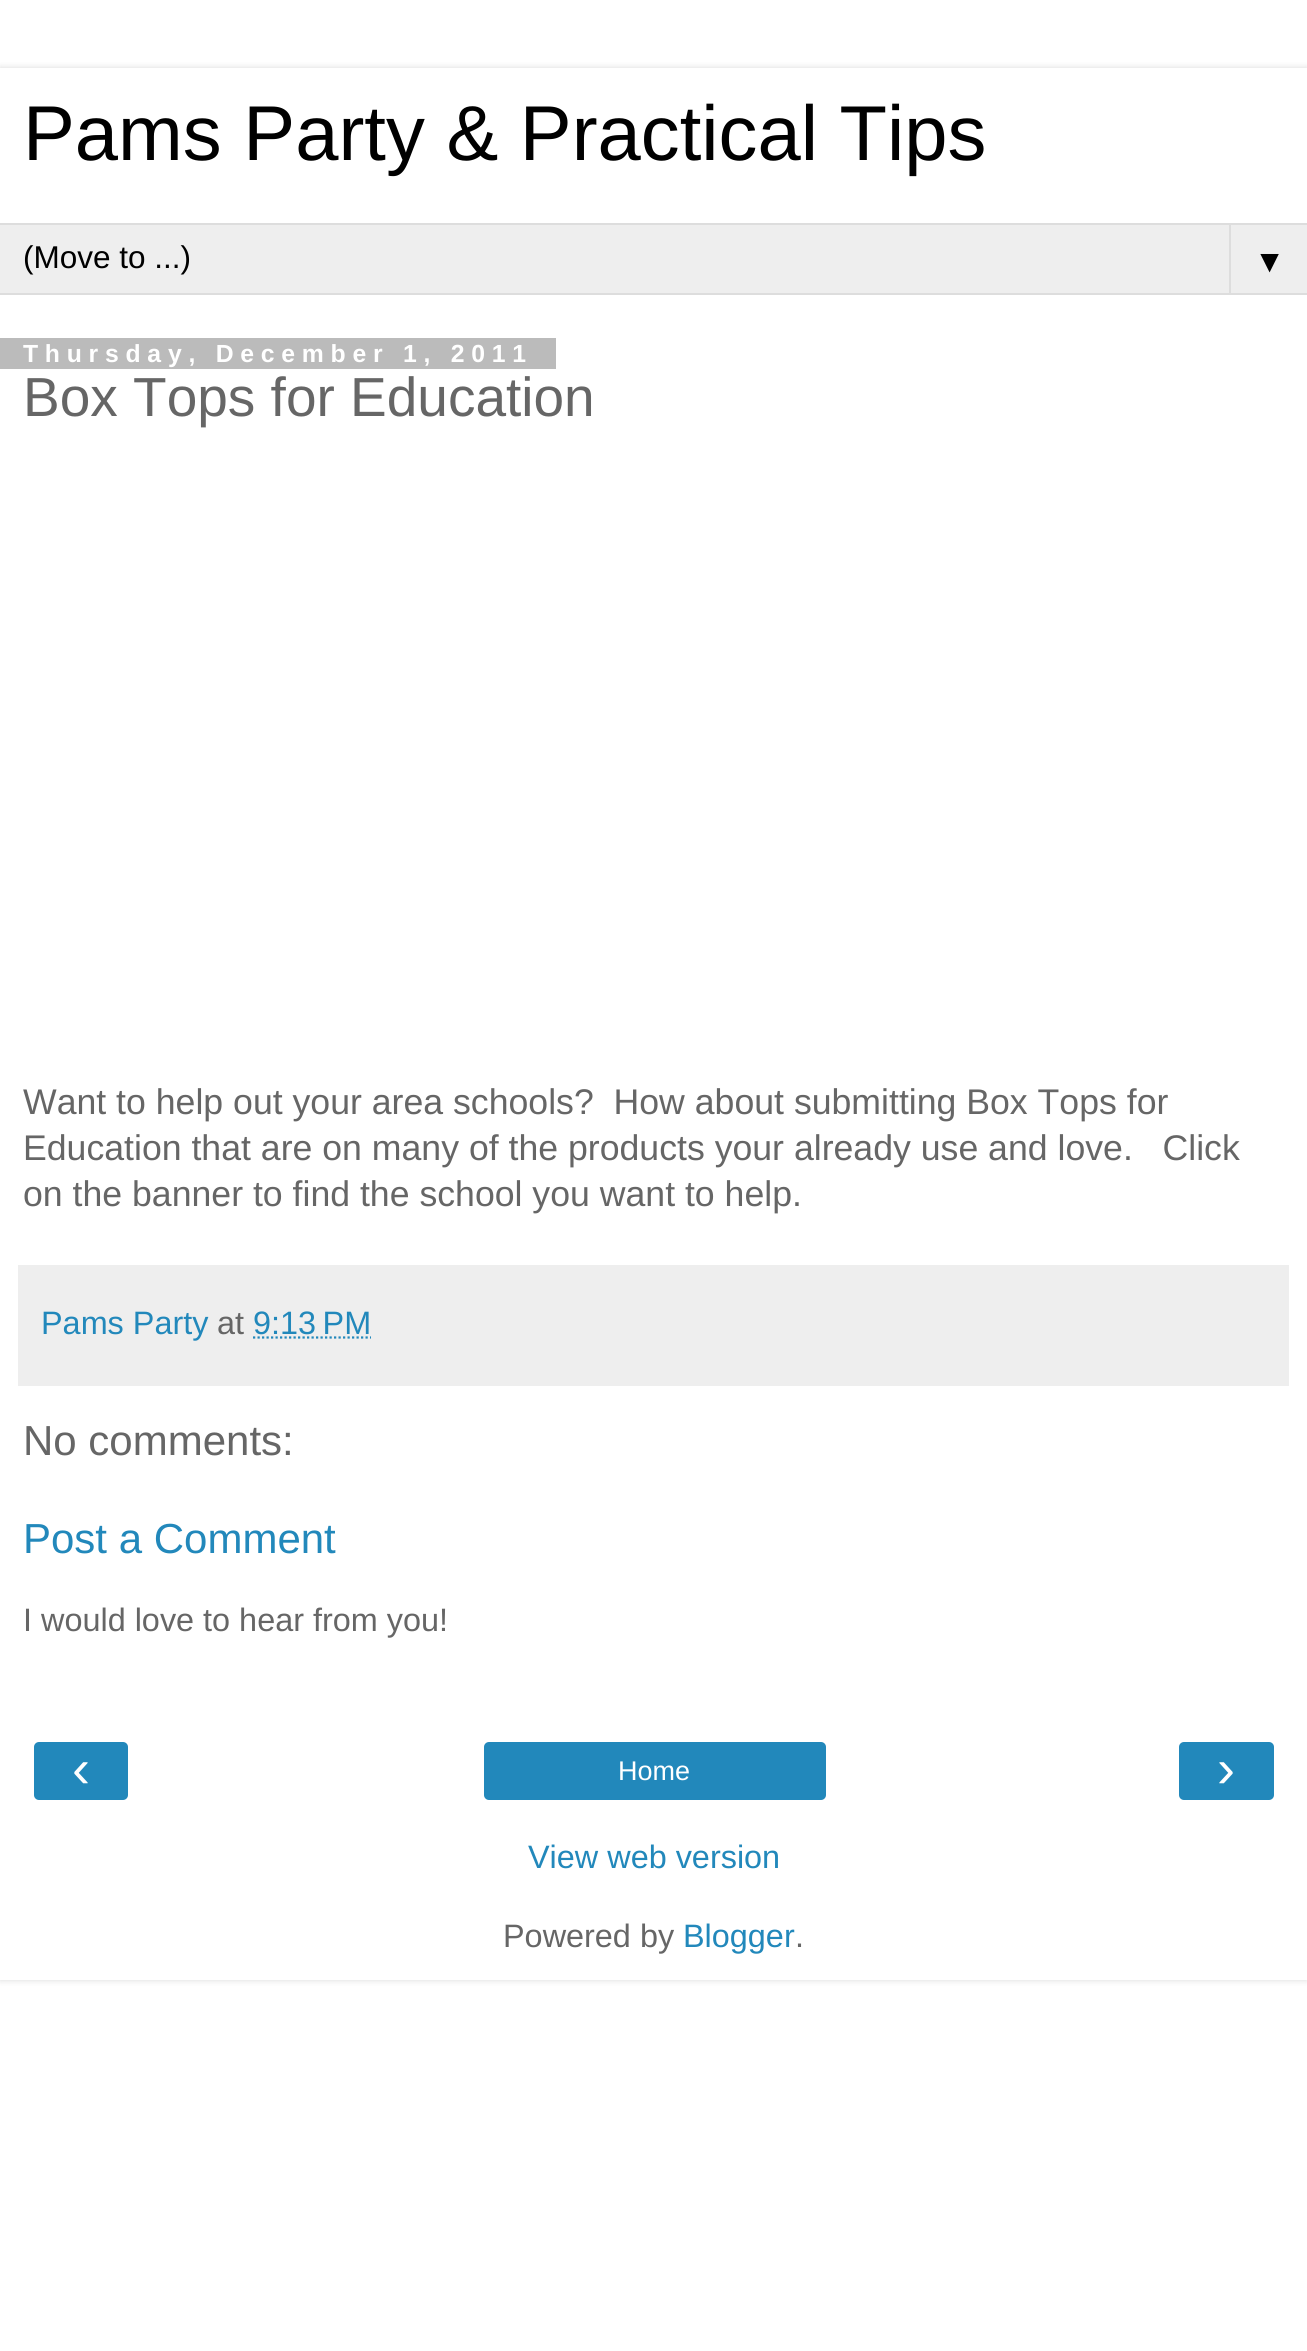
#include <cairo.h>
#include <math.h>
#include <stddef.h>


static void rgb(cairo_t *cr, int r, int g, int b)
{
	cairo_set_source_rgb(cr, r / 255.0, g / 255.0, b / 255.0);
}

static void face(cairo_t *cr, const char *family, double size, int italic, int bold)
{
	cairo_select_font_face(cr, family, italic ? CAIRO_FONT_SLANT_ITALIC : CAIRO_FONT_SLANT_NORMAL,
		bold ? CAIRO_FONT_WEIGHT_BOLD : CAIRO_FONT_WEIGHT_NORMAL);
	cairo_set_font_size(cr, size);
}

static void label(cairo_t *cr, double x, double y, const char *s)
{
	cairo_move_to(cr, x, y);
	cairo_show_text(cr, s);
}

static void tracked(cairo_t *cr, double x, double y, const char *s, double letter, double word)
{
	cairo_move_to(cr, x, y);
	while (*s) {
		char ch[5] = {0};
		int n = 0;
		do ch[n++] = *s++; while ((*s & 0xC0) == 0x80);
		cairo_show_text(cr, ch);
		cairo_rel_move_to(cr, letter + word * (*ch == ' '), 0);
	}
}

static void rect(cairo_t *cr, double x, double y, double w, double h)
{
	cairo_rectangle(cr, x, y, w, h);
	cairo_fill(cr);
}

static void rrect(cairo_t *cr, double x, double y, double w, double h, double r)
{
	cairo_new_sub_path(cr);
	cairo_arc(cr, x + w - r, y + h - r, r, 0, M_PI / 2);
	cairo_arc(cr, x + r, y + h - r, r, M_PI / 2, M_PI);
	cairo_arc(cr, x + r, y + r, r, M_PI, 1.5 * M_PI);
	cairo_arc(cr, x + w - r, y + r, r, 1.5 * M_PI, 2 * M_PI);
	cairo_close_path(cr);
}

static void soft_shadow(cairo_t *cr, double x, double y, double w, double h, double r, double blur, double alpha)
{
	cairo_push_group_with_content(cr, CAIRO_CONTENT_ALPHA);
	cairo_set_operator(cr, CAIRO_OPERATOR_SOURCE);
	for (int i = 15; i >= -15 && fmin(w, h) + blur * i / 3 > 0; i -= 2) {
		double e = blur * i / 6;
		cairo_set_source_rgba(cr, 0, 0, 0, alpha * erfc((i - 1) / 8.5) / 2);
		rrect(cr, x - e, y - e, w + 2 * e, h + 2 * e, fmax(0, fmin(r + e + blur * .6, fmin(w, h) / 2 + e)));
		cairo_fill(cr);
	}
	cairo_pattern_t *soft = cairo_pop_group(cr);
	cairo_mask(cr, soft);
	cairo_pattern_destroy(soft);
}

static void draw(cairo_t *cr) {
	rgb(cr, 255, 255, 255);
	cairo_paint(cr);
	cairo_save(cr);
	cairo_set_fill_rule(cr, CAIRO_FILL_RULE_EVEN_ODD);
	cairo_new_path(cr);
	cairo_move_to(cr, 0, 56);
	cairo_line_to(cr, 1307, 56);
	cairo_line_to(cr, 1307, 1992);
	cairo_line_to(cr, 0, 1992);
	cairo_close_path(cr);
	cairo_move_to(cr, 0, 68);
	cairo_line_to(cr, 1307, 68);
	cairo_line_to(cr, 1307, 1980);
	cairo_line_to(cr, 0, 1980);
	cairo_close_path(cr);
	cairo_clip(cr);
	rgb(cr, 0, 0, 0);
	soft_shadow(cr, 0, 68, 1307, 1912, 0, 3.5, 0.15);
	cairo_restore(cr);
	face(cr, "Liberation Sans", 77.75, 0, 0);
	rgb(cr, 0, 0, 0);
	label(cr, 23, 160, "Pams Party & Practical Tips");
	rgb(cr, 238, 238, 238);
	rect(cr, 0, 225, 1307, 68);
	rgb(cr, 221, 221, 221);
	rect(cr, 0, 223, 1307, 2);
	rect(cr, 0, 293, 1307, 2);
	face(cr, "Liberation Sans", 31.5, 0, 0);
	rgb(cr, 0, 0, 0);
	label(cr, 23, 268, "(Move to ...)");
	rgb(cr, 221, 221, 221);
	rect(cr, 1229, 223, 2, 72);
	rgb(cr, 0, 0, 0);
	label(cr, 1254, 272, "▼");
	rgb(cr, 187, 187, 187);
	rect(cr, 0, 338, 556, 31);
	face(cr, "Liberation Sans", 24.75, 0, 1);
	rgb(cr, 255, 255, 255);
	tracked(cr, 23, 362, "Thursday, December 1, 2011", 6.75, 0);
	face(cr, "Liberation Sans", 55, 0, 0);
	rgb(cr, 102, 102, 102);
	label(cr, 23, 416, "Box Tops for Education");
	face(cr, "Liberation Sans", 35.65, 0, 0);
	label(cr, 23, 1114, "Want to help out your area schools?  How about submitting Box Tops for");
	label(cr, 23, 1160, "Education that are on many of the products your already use and love.   Click");
	label(cr, 23, 1206, "on the banner to find the school you want to help.");
	rgb(cr, 238, 238, 238);
	rect(cr, 18, 1265, 1271, 121);
	face(cr, "Liberation Sans", 32.4, 0, 0);
	rgb(cr, 34, 136, 187);
	label(cr, 41, 1334, "Pams Party");
	rgb(cr, 102, 102, 102);
	label(cr, 217, 1334, "at");
	rgb(cr, 34, 136, 187);
	label(cr, 253, 1334, "9:13 PM");
	cairo_new_path(cr);
	cairo_move_to(cr, 253, 1337.5);
	cairo_line_to(cr, 371, 1337.5);
	cairo_set_line_width(cr, 2.2);
	cairo_set_dash(cr, (double[]){2.25, 2.25}, 2, 0);
	cairo_stroke(cr);
	face(cr, "Liberation Sans", 42, 0, 0);
	rgb(cr, 102, 102, 102);
	label(cr, 23, 1455, "No comments:");
	rgb(cr, 34, 136, 187);
	label(cr, 23, 1553, "Post a Comment");
	face(cr, "Liberation Sans", 32.4, 0, 0);
	rgb(cr, 102, 102, 102);
	label(cr, 23, 1631, "I would love to hear from you!");
	rgb(cr, 34, 136, 187);
	rrect(cr, 34, 1742, 94, 58, 5);
	cairo_fill(cr);
	face(cr, "Liberation Sans", 54, 0, 0);
	rgb(cr, 255, 255, 255);
	label(cr, 72, 1787, "‹");
	rgb(cr, 34, 136, 187);
	rrect(cr, 484, 1742, 342, 58, 5);
	cairo_fill(cr);
	face(cr, "Liberation Sans", 27, 0, 0);
	rgb(cr, 255, 255, 255);
	label(cr, 618, 1780, "Home");
	rgb(cr, 34, 136, 187);
	rrect(cr, 1179, 1742, 95, 58, 5);
	cairo_fill(cr);
	face(cr, "Liberation Sans", 54, 0, 0);
	rgb(cr, 255, 255, 255);
	label(cr, 1217, 1787, "›");
	face(cr, "Liberation Sans", 32.4, 0, 0);
	rgb(cr, 34, 136, 187);
	label(cr, 528, 1868, "View web version");
	rgb(cr, 102, 102, 102);
	label(cr, 503, 1947, "Powered by");
	rgb(cr, 34, 136, 187);
	label(cr, 683, 1947, "Blogger");
	rgb(cr, 102, 102, 102);
	label(cr, 795, 1947, ".");
}

int main(void) {
	cairo_surface_t *surface = cairo_image_surface_create(CAIRO_FORMAT_RGB24, 1307, 2351);
	cairo_t *cr = cairo_create(surface);
	cairo_font_options_t *options = cairo_font_options_create();
	cairo_font_options_set_hint_metrics(options, CAIRO_HINT_METRICS_OFF);
	cairo_font_options_set_hint_style(options, CAIRO_HINT_STYLE_NONE);
	cairo_set_font_options(cr, options);
	cairo_set_miter_limit(cr, 4);
	draw(cr);
	cairo_surface_write_to_png(surface, "render.png");
	cairo_font_options_destroy(options);
	cairo_destroy(cr);
	cairo_surface_destroy(surface);
	return 0;
}
